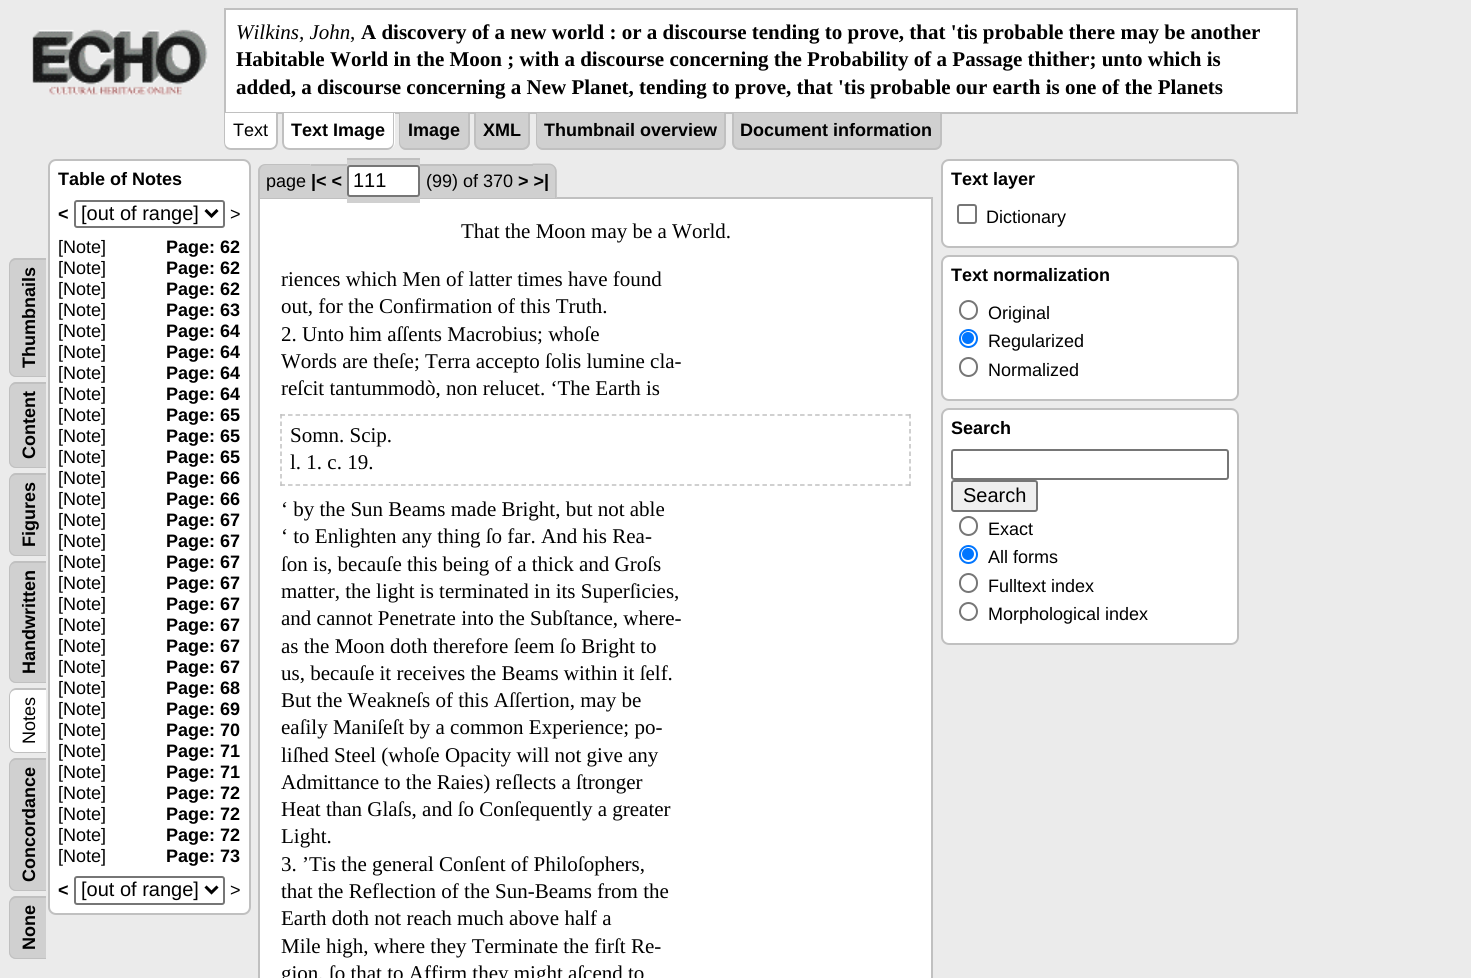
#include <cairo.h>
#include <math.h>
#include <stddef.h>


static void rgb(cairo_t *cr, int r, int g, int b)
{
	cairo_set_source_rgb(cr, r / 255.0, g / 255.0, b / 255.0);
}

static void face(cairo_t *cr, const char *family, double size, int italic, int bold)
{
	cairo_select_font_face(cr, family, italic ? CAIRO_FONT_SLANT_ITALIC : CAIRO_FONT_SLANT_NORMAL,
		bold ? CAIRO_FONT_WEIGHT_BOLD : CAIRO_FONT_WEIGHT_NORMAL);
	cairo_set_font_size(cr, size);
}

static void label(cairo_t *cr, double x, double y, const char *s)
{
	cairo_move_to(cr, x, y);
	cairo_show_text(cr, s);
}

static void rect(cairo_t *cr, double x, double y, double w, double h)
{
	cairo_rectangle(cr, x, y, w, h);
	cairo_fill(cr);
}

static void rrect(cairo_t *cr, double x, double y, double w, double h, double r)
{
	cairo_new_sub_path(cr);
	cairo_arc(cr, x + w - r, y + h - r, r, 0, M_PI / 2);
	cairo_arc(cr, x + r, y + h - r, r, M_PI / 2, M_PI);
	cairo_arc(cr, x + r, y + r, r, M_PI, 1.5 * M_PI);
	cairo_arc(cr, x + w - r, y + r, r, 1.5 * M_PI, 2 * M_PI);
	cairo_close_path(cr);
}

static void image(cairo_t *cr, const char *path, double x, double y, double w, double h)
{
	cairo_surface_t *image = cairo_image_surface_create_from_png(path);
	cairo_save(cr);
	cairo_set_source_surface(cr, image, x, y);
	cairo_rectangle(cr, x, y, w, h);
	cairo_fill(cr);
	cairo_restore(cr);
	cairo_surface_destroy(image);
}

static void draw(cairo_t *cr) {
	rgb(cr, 235, 235, 235);
	cairo_paint(cr);
	image(cr, "image0.png", 32, 29, 176, 66);
	rgb(cr, 255, 255, 255);
	cairo_rectangle(cr, 225, 9, 1072, 104);
	cairo_fill_preserve(cr);
	rgb(cr, 192, 192, 192);
	cairo_stroke(cr);
	face(cr, "Liberation Serif", 21, 1, 0);
	rgb(cr, 0, 0, 0);
	label(cr, 236, 39, "Wilkins, John");
	face(cr, "Liberation Serif", 21, 0, 0);
	label(cr, 350, 39, ",");
	face(cr, "Liberation Serif", 21, 0, 1);
	label(cr, 361, 39, "A discovery of a new world : or a discourse tending to prove, that 'tis probable there may be another");
	label(cr, 236, 66, "Habitable World in the Moon ; with a discourse concerning the Probability of a Passage thither; unto which is");
	label(cr, 236, 94, "added, a discourse concerning a New Planet, tending to prove, that 'tis probable our earth is one of the Planets");
	rgb(cr, 255, 255, 255);
	cairo_new_path(cr);
	cairo_move_to(cr, 224, 113);
	cairo_line_to(cr, 278, 113);
	cairo_line_to(cr, 278, 142);
	cairo_curve_to(cr, 278, 146.5, 274.5, 150, 270, 150);
	cairo_line_to(cr, 232, 150);
	cairo_curve_to(cr, 227.5, 150, 224, 146.5, 224, 142);
	cairo_close_path(cr);
	cairo_fill(cr);
	rgb(cr, 192, 192, 192);
	cairo_set_fill_rule(cr, CAIRO_FILL_RULE_EVEN_ODD);
	cairo_new_path(cr);
	cairo_move_to(cr, 224, 112);
	cairo_line_to(cr, 278, 112);
	cairo_line_to(cr, 278, 142);
	cairo_curve_to(cr, 278, 147, 274, 150, 270, 150);
	cairo_line_to(cr, 231, 150);
	cairo_curve_to(cr, 227, 150, 224, 147, 224, 142);
	cairo_close_path(cr);
	cairo_move_to(cr, 225, 112);
	cairo_line_to(cr, 276, 112);
	cairo_line_to(cr, 276, 142);
	cairo_curve_to(cr, 276, 146, 273, 148, 270, 148);
	cairo_line_to(cr, 231, 148);
	cairo_curve_to(cr, 228, 148, 225, 146, 225, 142);
	cairo_close_path(cr);
	cairo_fill(cr);
	face(cr, "Liberation Sans", 18, 0, 0);
	rgb(cr, 0, 0, 0);
	label(cr, 233, 136, "Text");
	rgb(cr, 255, 255, 255);
	cairo_new_path(cr);
	cairo_move_to(cr, 282, 113);
	cairo_line_to(cr, 395, 113);
	cairo_line_to(cr, 395, 142);
	cairo_curve_to(cr, 395, 146.5, 391.5, 150, 387, 150);
	cairo_line_to(cr, 290, 150);
	cairo_curve_to(cr, 285.5, 150, 282, 146.5, 282, 142);
	cairo_close_path(cr);
	cairo_fill(cr);
	rgb(cr, 192, 192, 192);
	cairo_new_path(cr);
	cairo_move_to(cr, 282, 112);
	cairo_line_to(cr, 394, 112);
	cairo_line_to(cr, 394, 142);
	cairo_curve_to(cr, 394, 147, 391, 150, 387, 150);
	cairo_line_to(cr, 290, 150);
	cairo_curve_to(cr, 285, 150, 282, 147, 282, 142);
	cairo_close_path(cr);
	cairo_move_to(cr, 284, 112);
	cairo_line_to(cr, 393, 112);
	cairo_line_to(cr, 393, 142);
	cairo_curve_to(cr, 393, 146, 390, 148, 387, 148);
	cairo_line_to(cr, 290, 148);
	cairo_curve_to(cr, 286, 148, 284, 146, 284, 142);
	cairo_close_path(cr);
	cairo_fill(cr);
	face(cr, "Liberation Sans", 18, 0, 1);
	rgb(cr, 0, 0, 0);
	label(cr, 291, 136, "Text Image");
	rgb(cr, 208, 208, 208);
	cairo_new_path(cr);
	cairo_move_to(cr, 399, 113);
	cairo_line_to(cr, 470, 113);
	cairo_line_to(cr, 470, 142);
	cairo_curve_to(cr, 470, 146.5, 466.5, 150, 462, 150);
	cairo_line_to(cr, 407, 150);
	cairo_curve_to(cr, 402.5, 150, 399, 146.5, 399, 142);
	cairo_close_path(cr);
	cairo_fill(cr);
	rgb(cr, 192, 192, 192);
	cairo_new_path(cr);
	cairo_move_to(cr, 399, 112);
	cairo_line_to(cr, 470, 112);
	cairo_line_to(cr, 470, 142);
	cairo_curve_to(cr, 470, 147, 466, 150, 462, 150);
	cairo_line_to(cr, 406, 150);
	cairo_curve_to(cr, 402, 150, 399, 147, 399, 142);
	cairo_close_path(cr);
	cairo_move_to(cr, 400, 112);
	cairo_line_to(cr, 468, 112);
	cairo_line_to(cr, 468, 142);
	cairo_curve_to(cr, 468, 146, 465, 148, 462, 148);
	cairo_line_to(cr, 406, 148);
	cairo_curve_to(cr, 403, 148, 400, 146, 400, 142);
	cairo_close_path(cr);
	cairo_fill(cr);
	rgb(cr, 0, 0, 0);
	label(cr, 408, 136, "Image");
	rgb(cr, 208, 208, 208);
	cairo_new_path(cr);
	cairo_move_to(cr, 474, 113);
	cairo_line_to(cr, 530, 113);
	cairo_line_to(cr, 530, 142);
	cairo_curve_to(cr, 530, 146.5, 526.5, 150, 522, 150);
	cairo_line_to(cr, 482, 150);
	cairo_curve_to(cr, 477.5, 150, 474, 146.5, 474, 142);
	cairo_close_path(cr);
	cairo_fill(cr);
	rgb(cr, 192, 192, 192);
	cairo_new_path(cr);
	cairo_move_to(cr, 474, 112);
	cairo_line_to(cr, 530, 112);
	cairo_line_to(cr, 530, 142);
	cairo_curve_to(cr, 530, 147, 526, 150, 522, 150);
	cairo_line_to(cr, 482, 150);
	cairo_curve_to(cr, 477, 150, 474, 147, 474, 142);
	cairo_close_path(cr);
	cairo_move_to(cr, 476, 112);
	cairo_line_to(cr, 528, 112);
	cairo_line_to(cr, 528, 142);
	cairo_curve_to(cr, 528, 146, 525, 148, 522, 148);
	cairo_line_to(cr, 482, 148);
	cairo_curve_to(cr, 478, 148, 476, 146, 476, 142);
	cairo_close_path(cr);
	cairo_fill(cr);
	rgb(cr, 0, 0, 0);
	label(cr, 483, 136, "XML");
	rgb(cr, 208, 208, 208);
	cairo_new_path(cr);
	cairo_move_to(cr, 536, 113);
	cairo_line_to(cr, 726, 113);
	cairo_line_to(cr, 726, 142);
	cairo_curve_to(cr, 726, 146.5, 722.5, 150, 718, 150);
	cairo_line_to(cr, 544, 150);
	cairo_curve_to(cr, 539.5, 150, 536, 146.5, 536, 142);
	cairo_close_path(cr);
	cairo_fill(cr);
	rgb(cr, 192, 192, 192);
	cairo_new_path(cr);
	cairo_move_to(cr, 536, 112);
	cairo_line_to(cr, 726, 112);
	cairo_line_to(cr, 726, 142);
	cairo_curve_to(cr, 726, 147, 723, 150, 718, 150);
	cairo_line_to(cr, 543, 150);
	cairo_curve_to(cr, 539, 150, 536, 147, 536, 142);
	cairo_close_path(cr);
	cairo_move_to(cr, 537, 112);
	cairo_line_to(cr, 724, 112);
	cairo_line_to(cr, 724, 142);
	cairo_curve_to(cr, 724, 146, 722, 148, 718, 148);
	cairo_line_to(cr, 543, 148);
	cairo_curve_to(cr, 540, 148, 537, 146, 537, 142);
	cairo_close_path(cr);
	cairo_fill(cr);
	rgb(cr, 0, 0, 0);
	label(cr, 544, 136, "Thumbnail overview");
	rgb(cr, 208, 208, 208);
	cairo_new_path(cr);
	cairo_move_to(cr, 732, 113);
	cairo_line_to(cr, 942, 113);
	cairo_line_to(cr, 942, 142);
	cairo_curve_to(cr, 942, 146.5, 938.5, 150, 934, 150);
	cairo_line_to(cr, 740, 150);
	cairo_curve_to(cr, 735.5, 150, 732, 146.5, 732, 142);
	cairo_close_path(cr);
	cairo_fill(cr);
	rgb(cr, 192, 192, 192);
	cairo_new_path(cr);
	cairo_move_to(cr, 732, 112);
	cairo_line_to(cr, 942, 112);
	cairo_line_to(cr, 942, 142);
	cairo_curve_to(cr, 942, 147, 939, 150, 934, 150);
	cairo_line_to(cr, 740, 150);
	cairo_curve_to(cr, 735, 150, 732, 147, 732, 142);
	cairo_close_path(cr);
	cairo_move_to(cr, 734, 112);
	cairo_line_to(cr, 940, 112);
	cairo_line_to(cr, 940, 142);
	cairo_curve_to(cr, 940, 146, 938, 148, 934, 148);
	cairo_line_to(cr, 740, 148);
	cairo_curve_to(cr, 736, 148, 734, 146, 734, 142);
	cairo_close_path(cr);
	cairo_fill(cr);
	rgb(cr, 0, 0, 0);
	label(cr, 740, 136, "Document information");
	rgb(cr, 208, 208, 208);
	cairo_set_fill_rule(cr, CAIRO_FILL_RULE_WINDING);
	cairo_new_path(cr);
	cairo_move_to(cr, 9, 370);
	cairo_line_to(cr, 9, 266);
	cairo_curve_to(cr, 9, 261, 12, 258, 16, 258);
	cairo_line_to(cr, 46, 258);
	cairo_line_to(cr, 46, 377);
	cairo_line_to(cr, 16, 377);
	cairo_curve_to(cr, 12, 377, 9, 374, 9, 370);
	cairo_close_path(cr);
	cairo_fill(cr);
	rgb(cr, 192, 192, 192);
	cairo_set_fill_rule(cr, CAIRO_FILL_RULE_EVEN_ODD);
	cairo_new_path(cr);
	cairo_move_to(cr, 9, 370);
	cairo_line_to(cr, 9, 266);
	cairo_curve_to(cr, 9, 261, 12, 258, 16, 258);
	cairo_line_to(cr, 46, 258);
	cairo_line_to(cr, 46, 377);
	cairo_line_to(cr, 16, 377);
	cairo_curve_to(cr, 12, 377, 9, 374, 9, 370);
	cairo_close_path(cr);
	cairo_move_to(cr, 10, 370);
	cairo_line_to(cr, 10, 266);
	cairo_curve_to(cr, 10, 262, 13, 260, 16, 260);
	cairo_line_to(cr, 46, 260);
	cairo_line_to(cr, 46, 376);
	cairo_line_to(cr, 16, 376);
	cairo_curve_to(cr, 13, 376, 10, 373, 10, 370);
	cairo_close_path(cr);
	cairo_fill(cr);
	rgb(cr, 0, 0, 0);
	cairo_save(cr);
	cairo_translate(cr, 35, 368);
	cairo_rotate(cr, -90 * M_PI / 180);
	label(cr, 0, 0, "Thumbnails");
	cairo_restore(cr);
	rgb(cr, 208, 208, 208);
	cairo_set_fill_rule(cr, CAIRO_FILL_RULE_WINDING);
	cairo_new_path(cr);
	cairo_move_to(cr, 9, 461);
	cairo_line_to(cr, 9, 390);
	cairo_curve_to(cr, 9, 386, 12, 382, 16, 382);
	cairo_line_to(cr, 46, 382);
	cairo_line_to(cr, 46, 468);
	cairo_line_to(cr, 16, 468);
	cairo_curve_to(cr, 12, 468, 9, 465, 9, 461);
	cairo_close_path(cr);
	cairo_fill(cr);
	rgb(cr, 192, 192, 192);
	cairo_set_fill_rule(cr, CAIRO_FILL_RULE_EVEN_ODD);
	cairo_new_path(cr);
	cairo_move_to(cr, 9, 461);
	cairo_line_to(cr, 9, 390);
	cairo_curve_to(cr, 9, 386, 12, 382, 16, 382);
	cairo_line_to(cr, 46, 382);
	cairo_line_to(cr, 46, 468);
	cairo_line_to(cr, 16, 468);
	cairo_curve_to(cr, 12, 468, 9, 465, 9, 461);
	cairo_close_path(cr);
	cairo_move_to(cr, 10, 461);
	cairo_line_to(cr, 10, 390);
	cairo_curve_to(cr, 10, 386, 13, 384, 16, 384);
	cairo_line_to(cr, 46, 384);
	cairo_line_to(cr, 46, 467);
	cairo_line_to(cr, 16, 467);
	cairo_curve_to(cr, 13, 467, 10, 464, 10, 461);
	cairo_close_path(cr);
	cairo_fill(cr);
	rgb(cr, 0, 0, 0);
	cairo_save(cr);
	cairo_translate(cr, 35, 459);
	cairo_rotate(cr, -90 * M_PI / 180);
	label(cr, 0, 0, "Content");
	cairo_restore(cr);
	rgb(cr, 208, 208, 208);
	cairo_set_fill_rule(cr, CAIRO_FILL_RULE_WINDING);
	cairo_new_path(cr);
	cairo_move_to(cr, 9, 549);
	cairo_line_to(cr, 9, 481);
	cairo_curve_to(cr, 9, 477, 12, 473, 16, 473);
	cairo_line_to(cr, 46, 473);
	cairo_line_to(cr, 46, 556);
	cairo_line_to(cr, 16, 556);
	cairo_curve_to(cr, 12, 556, 9, 553, 9, 549);
	cairo_close_path(cr);
	cairo_fill(cr);
	rgb(cr, 192, 192, 192);
	cairo_set_fill_rule(cr, CAIRO_FILL_RULE_EVEN_ODD);
	cairo_new_path(cr);
	cairo_move_to(cr, 9, 549);
	cairo_line_to(cr, 9, 481);
	cairo_curve_to(cr, 9, 477, 12, 473, 16, 473);
	cairo_line_to(cr, 46, 473);
	cairo_line_to(cr, 46, 556);
	cairo_line_to(cr, 16, 556);
	cairo_curve_to(cr, 12, 556, 9, 553, 9, 549);
	cairo_close_path(cr);
	cairo_move_to(cr, 10, 549);
	cairo_line_to(cr, 10, 481);
	cairo_curve_to(cr, 10, 477, 13, 475, 16, 475);
	cairo_line_to(cr, 46, 475);
	cairo_line_to(cr, 46, 555);
	cairo_line_to(cr, 16, 555);
	cairo_curve_to(cr, 13, 555, 10, 552, 10, 549);
	cairo_close_path(cr);
	cairo_fill(cr);
	rgb(cr, 0, 0, 0);
	cairo_save(cr);
	cairo_translate(cr, 35, 547);
	cairo_rotate(cr, -90 * M_PI / 180);
	label(cr, 0, 0, "Figures");
	cairo_restore(cr);
	rgb(cr, 208, 208, 208);
	cairo_set_fill_rule(cr, CAIRO_FILL_RULE_WINDING);
	cairo_new_path(cr);
	cairo_move_to(cr, 9, 676);
	cairo_line_to(cr, 9, 569);
	cairo_curve_to(cr, 9, 565, 12, 561, 16, 561);
	cairo_line_to(cr, 46, 561);
	cairo_line_to(cr, 46, 683);
	cairo_line_to(cr, 16, 683);
	cairo_curve_to(cr, 12, 683, 9, 680, 9, 676);
	cairo_close_path(cr);
	cairo_fill(cr);
	rgb(cr, 192, 192, 192);
	cairo_set_fill_rule(cr, CAIRO_FILL_RULE_EVEN_ODD);
	cairo_new_path(cr);
	cairo_move_to(cr, 9, 676);
	cairo_line_to(cr, 9, 569);
	cairo_curve_to(cr, 9, 565, 12, 561, 16, 561);
	cairo_line_to(cr, 46, 561);
	cairo_line_to(cr, 46, 683);
	cairo_line_to(cr, 16, 683);
	cairo_curve_to(cr, 12, 683, 9, 680, 9, 676);
	cairo_close_path(cr);
	cairo_move_to(cr, 10, 676);
	cairo_line_to(cr, 10, 569);
	cairo_curve_to(cr, 10, 565, 13, 563, 16, 563);
	cairo_line_to(cr, 46, 563);
	cairo_line_to(cr, 46, 682);
	cairo_line_to(cr, 16, 682);
	cairo_curve_to(cr, 13, 682, 10, 679, 10, 676);
	cairo_close_path(cr);
	cairo_fill(cr);
	rgb(cr, 0, 0, 0);
	cairo_save(cr);
	cairo_translate(cr, 35, 674);
	cairo_rotate(cr, -90 * M_PI / 180);
	label(cr, 0, 0, "Handwritten");
	cairo_restore(cr);
	rgb(cr, 255, 255, 255);
	cairo_set_fill_rule(cr, CAIRO_FILL_RULE_WINDING);
	cairo_new_path(cr);
	cairo_move_to(cr, 9, 746);
	cairo_line_to(cr, 9, 696);
	cairo_curve_to(cr, 9, 692, 12, 688, 16, 688);
	cairo_line_to(cr, 46, 688);
	cairo_line_to(cr, 46, 753);
	cairo_line_to(cr, 16, 753);
	cairo_curve_to(cr, 12, 753, 9, 750, 9, 746);
	cairo_close_path(cr);
	cairo_fill(cr);
	rgb(cr, 192, 192, 192);
	cairo_set_fill_rule(cr, CAIRO_FILL_RULE_EVEN_ODD);
	cairo_new_path(cr);
	cairo_move_to(cr, 9, 746);
	cairo_line_to(cr, 9, 696);
	cairo_curve_to(cr, 9, 692, 12, 688, 16, 688);
	cairo_line_to(cr, 46, 688);
	cairo_line_to(cr, 46, 753);
	cairo_line_to(cr, 16, 753);
	cairo_curve_to(cr, 12, 753, 9, 750, 9, 746);
	cairo_close_path(cr);
	cairo_move_to(cr, 10, 746);
	cairo_line_to(cr, 10, 696);
	cairo_curve_to(cr, 10, 692, 13, 690, 16, 690);
	cairo_line_to(cr, 46, 690);
	cairo_line_to(cr, 46, 752);
	cairo_line_to(cr, 16, 752);
	cairo_curve_to(cr, 13, 752, 10, 749, 10, 746);
	cairo_close_path(cr);
	cairo_fill(cr);
	face(cr, "Liberation Sans", 18, 0, 0);
	rgb(cr, 0, 0, 0);
	cairo_save(cr);
	cairo_translate(cr, 35, 744);
	cairo_rotate(cr, -90 * M_PI / 180);
	label(cr, 0, 0, "Notes");
	cairo_restore(cr);
	rgb(cr, 208, 208, 208);
	cairo_set_fill_rule(cr, CAIRO_FILL_RULE_WINDING);
	cairo_new_path(cr);
	cairo_move_to(cr, 9, 884);
	cairo_line_to(cr, 9, 766);
	cairo_curve_to(cr, 9, 762, 12, 758, 16, 758);
	cairo_line_to(cr, 46, 758);
	cairo_line_to(cr, 46, 891);
	cairo_line_to(cr, 16, 891);
	cairo_curve_to(cr, 12, 891, 9, 888, 9, 884);
	cairo_close_path(cr);
	cairo_fill(cr);
	rgb(cr, 192, 192, 192);
	cairo_set_fill_rule(cr, CAIRO_FILL_RULE_EVEN_ODD);
	cairo_new_path(cr);
	cairo_move_to(cr, 9, 884);
	cairo_line_to(cr, 9, 766);
	cairo_curve_to(cr, 9, 762, 12, 758, 16, 758);
	cairo_line_to(cr, 46, 758);
	cairo_line_to(cr, 46, 891);
	cairo_line_to(cr, 16, 891);
	cairo_curve_to(cr, 12, 891, 9, 888, 9, 884);
	cairo_close_path(cr);
	cairo_move_to(cr, 10, 884);
	cairo_line_to(cr, 10, 766);
	cairo_curve_to(cr, 10, 762, 13, 760, 16, 760);
	cairo_line_to(cr, 46, 760);
	cairo_line_to(cr, 46, 890);
	cairo_line_to(cr, 16, 890);
	cairo_curve_to(cr, 13, 890, 10, 887, 10, 884);
	cairo_close_path(cr);
	cairo_fill(cr);
	face(cr, "Liberation Sans", 18, 0, 1);
	rgb(cr, 0, 0, 0);
	cairo_save(cr);
	cairo_translate(cr, 35, 882);
	cairo_rotate(cr, -90 * M_PI / 180);
	label(cr, 0, 0, "Concordance");
	cairo_restore(cr);
	rgb(cr, 208, 208, 208);
	cairo_set_fill_rule(cr, CAIRO_FILL_RULE_WINDING);
	cairo_new_path(cr);
	cairo_move_to(cr, 9, 952);
	cairo_line_to(cr, 9, 904);
	cairo_curve_to(cr, 9, 900, 12, 896, 16, 896);
	cairo_line_to(cr, 46, 896);
	cairo_line_to(cr, 46, 959);
	cairo_line_to(cr, 16, 959);
	cairo_curve_to(cr, 12, 959, 9, 956, 9, 952);
	cairo_close_path(cr);
	cairo_fill(cr);
	rgb(cr, 192, 192, 192);
	cairo_set_fill_rule(cr, CAIRO_FILL_RULE_EVEN_ODD);
	cairo_new_path(cr);
	cairo_move_to(cr, 9, 952);
	cairo_line_to(cr, 9, 904);
	cairo_curve_to(cr, 9, 900, 12, 896, 16, 896);
	cairo_line_to(cr, 46, 896);
	cairo_line_to(cr, 46, 959);
	cairo_line_to(cr, 16, 959);
	cairo_curve_to(cr, 12, 959, 9, 956, 9, 952);
	cairo_close_path(cr);
	cairo_move_to(cr, 10, 952);
	cairo_line_to(cr, 10, 904);
	cairo_curve_to(cr, 10, 901, 13, 898, 16, 898);
	cairo_line_to(cr, 46, 898);
	cairo_line_to(cr, 46, 958);
	cairo_line_to(cr, 16, 958);
	cairo_curve_to(cr, 13, 958, 10, 955, 10, 952);
	cairo_close_path(cr);
	cairo_fill(cr);
	rgb(cr, 0, 0, 0);
	cairo_save(cr);
	cairo_translate(cr, 35, 950);
	cairo_rotate(cr, -90 * M_PI / 180);
	label(cr, 0, 0, "None");
	cairo_restore(cr);
	rgb(cr, 255, 255, 255);
	rrect(cr, 49, 160, 201, 754, 7);
	cairo_fill_preserve(cr);
	rgb(cr, 192, 192, 192);
	cairo_stroke(cr);
	rgb(cr, 0, 0, 0);
	label(cr, 58, 185, "Table of Notes");
	label(cr, 58, 220, "<");
	rrect(cr, 75, 201, 149, 26, 2);
	rgb(cr, 118, 118, 118);
	cairo_stroke(cr);
	cairo_new_path(cr);
	cairo_move_to(cr, 205.5, 210);
	cairo_line_to(cr, 211.5, 216);
	cairo_line_to(cr, 217.5, 210);
	rgb(cr, 0, 0, 0);
	cairo_set_line_width(cr, 3);
	cairo_stroke(cr);
	face(cr, "Liberation Sans", 20, 0, 0);
	label(cr, 81, 220, "[out of range]");
	face(cr, "Liberation Sans", 18, 0, 0);
	label(cr, 230, 220, ">");
	label(cr, 58, 253, "[Note]");
	face(cr, "Liberation Sans", 18, 0, 1);
	label(cr, 166, 253, "Page: 62");
	face(cr, "Liberation Sans", 18, 0, 0);
	label(cr, 58, 274, "[Note]");
	face(cr, "Liberation Sans", 18, 0, 1);
	label(cr, 166, 274, "Page: 62");
	face(cr, "Liberation Sans", 18, 0, 0);
	label(cr, 58, 295, "[Note]");
	face(cr, "Liberation Sans", 18, 0, 1);
	label(cr, 166, 295, "Page: 62");
	face(cr, "Liberation Sans", 18, 0, 0);
	label(cr, 58, 316, "[Note]");
	face(cr, "Liberation Sans", 18, 0, 1);
	label(cr, 166, 316, "Page: 63");
	face(cr, "Liberation Sans", 18, 0, 0);
	label(cr, 58, 337, "[Note]");
	face(cr, "Liberation Sans", 18, 0, 1);
	label(cr, 166, 337, "Page: 64");
	face(cr, "Liberation Sans", 18, 0, 0);
	label(cr, 58, 358, "[Note]");
	face(cr, "Liberation Sans", 18, 0, 1);
	label(cr, 166, 358, "Page: 64");
	face(cr, "Liberation Sans", 18, 0, 0);
	label(cr, 58, 379, "[Note]");
	face(cr, "Liberation Sans", 18, 0, 1);
	label(cr, 166, 379, "Page: 64");
	face(cr, "Liberation Sans", 18, 0, 0);
	label(cr, 58, 400, "[Note]");
	face(cr, "Liberation Sans", 18, 0, 1);
	label(cr, 166, 400, "Page: 64");
	face(cr, "Liberation Sans", 18, 0, 0);
	label(cr, 58, 421, "[Note]");
	face(cr, "Liberation Sans", 18, 0, 1);
	label(cr, 166, 421, "Page: 65");
	face(cr, "Liberation Sans", 18, 0, 0);
	label(cr, 58, 442, "[Note]");
	face(cr, "Liberation Sans", 18, 0, 1);
	label(cr, 166, 442, "Page: 65");
	face(cr, "Liberation Sans", 18, 0, 0);
	label(cr, 58, 463, "[Note]");
	face(cr, "Liberation Sans", 18, 0, 1);
	label(cr, 166, 463, "Page: 65");
	face(cr, "Liberation Sans", 18, 0, 0);
	label(cr, 58, 484, "[Note]");
	face(cr, "Liberation Sans", 18, 0, 1);
	label(cr, 166, 484, "Page: 66");
	face(cr, "Liberation Sans", 18, 0, 0);
	label(cr, 58, 505, "[Note]");
	face(cr, "Liberation Sans", 18, 0, 1);
	label(cr, 166, 505, "Page: 66");
	face(cr, "Liberation Sans", 18, 0, 0);
	label(cr, 58, 526, "[Note]");
	face(cr, "Liberation Sans", 18, 0, 1);
	label(cr, 166, 526, "Page: 67");
	face(cr, "Liberation Sans", 18, 0, 0);
	label(cr, 58, 547, "[Note]");
	face(cr, "Liberation Sans", 18, 0, 1);
	label(cr, 166, 547, "Page: 67");
	face(cr, "Liberation Sans", 18, 0, 0);
	label(cr, 58, 568, "[Note]");
	face(cr, "Liberation Sans", 18, 0, 1);
	label(cr, 166, 568, "Page: 67");
	face(cr, "Liberation Sans", 18, 0, 0);
	label(cr, 58, 589, "[Note]");
	face(cr, "Liberation Sans", 18, 0, 1);
	label(cr, 166, 589, "Page: 67");
	face(cr, "Liberation Sans", 18, 0, 0);
	label(cr, 58, 610, "[Note]");
	face(cr, "Liberation Sans", 18, 0, 1);
	label(cr, 166, 610, "Page: 67");
	face(cr, "Liberation Sans", 18, 0, 0);
	label(cr, 58, 631, "[Note]");
	face(cr, "Liberation Sans", 18, 0, 1);
	label(cr, 166, 631, "Page: 67");
	face(cr, "Liberation Sans", 18, 0, 0);
	label(cr, 58, 652, "[Note]");
	face(cr, "Liberation Sans", 18, 0, 1);
	label(cr, 166, 652, "Page: 67");
	face(cr, "Liberation Sans", 18, 0, 0);
	label(cr, 58, 673, "[Note]");
	face(cr, "Liberation Sans", 18, 0, 1);
	label(cr, 166, 673, "Page: 67");
	face(cr, "Liberation Sans", 18, 0, 0);
	label(cr, 58, 694, "[Note]");
	face(cr, "Liberation Sans", 18, 0, 1);
	label(cr, 166, 694, "Page: 68");
	face(cr, "Liberation Sans", 18, 0, 0);
	label(cr, 58, 715, "[Note]");
	face(cr, "Liberation Sans", 18, 0, 1);
	label(cr, 166, 715, "Page: 69");
	face(cr, "Liberation Sans", 18, 0, 0);
	label(cr, 58, 736, "[Note]");
	face(cr, "Liberation Sans", 18, 0, 1);
	label(cr, 166, 736, "Page: 70");
	face(cr, "Liberation Sans", 18, 0, 0);
	label(cr, 58, 757, "[Note]");
	face(cr, "Liberation Sans", 18, 0, 1);
	label(cr, 166, 757, "Page: 71");
	face(cr, "Liberation Sans", 18, 0, 0);
	label(cr, 58, 778, "[Note]");
	face(cr, "Liberation Sans", 18, 0, 1);
	label(cr, 166, 778, "Page: 71");
	face(cr, "Liberation Sans", 18, 0, 0);
	label(cr, 58, 799, "[Note]");
	face(cr, "Liberation Sans", 18, 0, 1);
	label(cr, 166, 799, "Page: 72");
	face(cr, "Liberation Sans", 18, 0, 0);
	label(cr, 58, 820, "[Note]");
	face(cr, "Liberation Sans", 18, 0, 1);
	label(cr, 166, 820, "Page: 72");
	face(cr, "Liberation Sans", 18, 0, 0);
	label(cr, 58, 841, "[Note]");
	face(cr, "Liberation Sans", 18, 0, 1);
	label(cr, 166, 841, "Page: 72");
	face(cr, "Liberation Sans", 18, 0, 0);
	label(cr, 58, 862, "[Note]");
	face(cr, "Liberation Sans", 18, 0, 1);
	label(cr, 166, 862, "Page: 73");
	label(cr, 58, 896, "<");
	rrect(cr, 75, 877, 149, 27, 2);
	rgb(cr, 118, 118, 118);
	cairo_set_line_width(cr, 2);
	cairo_stroke(cr);
	cairo_new_path(cr);
	cairo_move_to(cr, 205.5, 886.5);
	cairo_line_to(cr, 211.5, 892.5);
	cairo_line_to(cr, 217.5, 886.5);
	rgb(cr, 0, 0, 0);
	cairo_set_line_width(cr, 3);
	cairo_stroke(cr);
	face(cr, "Liberation Sans", 20, 0, 0);
	label(cr, 81, 896, "[out of range]");
	face(cr, "Liberation Sans", 18, 0, 0);
	label(cr, 230, 896, ">");
	rgb(cr, 255, 255, 255);
	cairo_rectangle(cr, 259, 198, 673, 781);
	cairo_fill_preserve(cr);
	rgb(cr, 192, 192, 192);
	cairo_set_line_width(cr, 2);
	cairo_stroke(cr);
	rgb(cr, 208, 208, 208);
	cairo_new_path(cr);
	cairo_move_to(cr, 266, 164);
	cairo_line_to(cr, 311, 164);
	cairo_line_to(cr, 311, 198);
	cairo_line_to(cr, 258, 198);
	cairo_line_to(cr, 258, 172);
	cairo_curve_to(cr, 258, 167.5, 261.5, 164, 266, 164);
	cairo_close_path(cr);
	cairo_fill(cr);
	rgb(cr, 192, 192, 192);
	cairo_new_path(cr);
	cairo_move_to(cr, 266, 164);
	cairo_line_to(cr, 310, 164);
	cairo_line_to(cr, 310, 198);
	cairo_line_to(cr, 258, 198);
	cairo_line_to(cr, 258, 171);
	cairo_curve_to(cr, 258, 167, 261, 164, 266, 164);
	cairo_close_path(cr);
	cairo_move_to(cr, 266, 165);
	cairo_line_to(cr, 310, 165);
	cairo_line_to(cr, 310, 198);
	cairo_line_to(cr, 260, 198);
	cairo_line_to(cr, 260, 171);
	cairo_curve_to(cr, 260, 168, 262, 165, 266, 165);
	cairo_close_path(cr);
	cairo_fill(cr);
	rgb(cr, 208, 208, 208);
	rect(cr, 311, 166, 16, 32);
	rgb(cr, 192, 192, 192);
	rect(cr, 311, 164, 16, 2);
	rgb(cr, 208, 208, 208);
	rect(cr, 327, 164, 5, 34);
	rgb(cr, 192, 192, 192);
	rect(cr, 327, 164, 15, 2);
	rgb(cr, 208, 208, 208);
	rect(cr, 332, 166, 10, 32);
	rect(cr, 342, 164, 5, 34);
	rgb(cr, 192, 192, 192);
	rect(cr, 342, 164, 5, 2);
	rgb(cr, 208, 208, 208);
	rect(cr, 347, 160, 73, 43);
	rgb(cr, 192, 192, 192);
	rect(cr, 347, 158, 73, 2);
	rgb(cr, 208, 208, 208);
	rect(cr, 420, 164, 6, 34);
	rgb(cr, 192, 192, 192);
	rect(cr, 420, 164, 108, 2);
	rgb(cr, 208, 208, 208);
	rect(cr, 426, 166, 102, 32);
	rect(cr, 528, 164, 5, 34);
	rgb(cr, 192, 192, 192);
	rect(cr, 528, 164, 5, 2);
	rgb(cr, 208, 208, 208);
	cairo_new_path(cr);
	cairo_move_to(cr, 533, 164);
	cairo_line_to(cr, 549, 164);
	cairo_curve_to(cr, 553.5, 164, 557, 167.5, 557, 172);
	cairo_line_to(cr, 557, 198);
	cairo_line_to(cr, 533, 198);
	cairo_close_path(cr);
	cairo_fill(cr);
	rgb(cr, 192, 192, 192);
	cairo_new_path(cr);
	cairo_move_to(cr, 532.5, 163.5);
	cairo_line_to(cr, 549, 163.5);
	cairo_curve_to(cr, 553, 163.5, 556.5, 167, 556.5, 171);
	cairo_line_to(cr, 556.5, 198);
	cairo_line_to(cr, 532.5, 198);
	cairo_close_path(cr);
	cairo_move_to(cr, 532.5, 165);
	cairo_line_to(cr, 549, 165);
	cairo_curve_to(cr, 552.5, 165, 555, 167.5, 555, 171);
	cairo_line_to(cr, 555, 198);
	cairo_line_to(cr, 532.5, 198);
	cairo_close_path(cr);
	cairo_fill(cr);
	rgb(cr, 0, 0, 0);
	label(cr, 266, 187, "page");
	face(cr, "Liberation Sans", 18, 0, 1);
	label(cr, 311, 187, "|< <");
	rgb(cr, 255, 255, 255);
	rrect(cr, 348, 166, 71, 30, 2);
	cairo_fill_preserve(cr);
	rgb(cr, 118, 118, 118);
	cairo_stroke(cr);
	face(cr, "Liberation Sans", 20, 0, 0);
	rgb(cr, 0, 0, 0);
	label(cr, 353, 187, "111");
	face(cr, "Liberation Sans", 18, 0, 0);
	label(cr, 426, 187, "(99) of 370");
	face(cr, "Liberation Sans", 18, 0, 1);
	label(cr, 518, 187, "> >|");
	face(cr, "Liberation Serif", 21, 0, 0);
	label(cr, 461, 238, "That the Moon may be a World.");
	label(cr, 281, 286, "riences which Men of latter times have found");
	label(cr, 281, 313, "out, for the Confirmation of this Truth.");
	label(cr, 281, 341, "2. Unto him aſſents Macrobius; whoſe");
	label(cr, 281, 368, "Words are theſe; Terra accepto ſolis lumine cla-");
	label(cr, 281, 395, "reſcit tantummodò, non relucet. ‘The Earth is");
	cairo_new_path(cr);
	cairo_move_to(cr, 280.5, 415);
	cairo_line_to(cr, 910.5, 415);
	rgb(cr, 192, 192, 192);
	cairo_set_line_width(cr, 1.5);
	cairo_set_dash(cr, (double[]){4.5, 3.03}, 2, 0);
	cairo_stroke(cr);
	cairo_new_path(cr);
	cairo_move_to(cr, 910, 414);
	cairo_line_to(cr, 910, 486);
	cairo_set_dash(cr, (double[]){4.5, 3}, 2, 0);
	cairo_stroke(cr);
	cairo_new_path(cr);
	cairo_move_to(cr, 280.5, 485);
	cairo_line_to(cr, 910.5, 485);
	cairo_set_dash(cr, (double[]){4.5, 3.03}, 2, 0);
	cairo_stroke(cr);
	cairo_new_path(cr);
	cairo_move_to(cr, 281, 414);
	cairo_line_to(cr, 281, 486);
	cairo_set_dash(cr, (double[]){4.5, 3}, 2, 0);
	cairo_stroke(cr);
	rgb(cr, 0, 0, 0);
	label(cr, 290, 442, "Somn. Scip.");
	label(cr, 290, 469, "l. 1. c. 19.");
	label(cr, 281, 516, "‘ by the Sun Beams made Bright, but not able");
	label(cr, 281, 543, "‘ to Enlighten any thing ſo far. And his Rea-");
	label(cr, 281, 571, "ſon is, becauſe this being of a thick and Groſs");
	label(cr, 281, 598, "matter, the light is terminated in its Superſicies,");
	label(cr, 281, 625, "and cannot Penetrate into the Subſtance, where-");
	label(cr, 281, 653, "as the Moon doth therefore ſeem ſo Bright to");
	label(cr, 281, 680, "us, becauſe it receives the Beams within it ſelf.");
	label(cr, 281, 707, "But the Weakneſs of this Aſſertion, may be");
	label(cr, 281, 734, "eaſily Maniſeſt by a common Experience; po-");
	label(cr, 281, 762, "liſhed Steel (whoſe Opacity will not give any");
	label(cr, 281, 789, "Admittance to the Raies) reſlects a ſtronger");
	label(cr, 281, 816, "Heat than Glaſs, and ſo Conſequently a greater");
	label(cr, 281, 843, "Light.");
	label(cr, 281, 871, "3. ’Tis the general Conſent of Philoſophers,");
	label(cr, 281, 898, "that the Reflection of the Sun-Beams from the");
	label(cr, 281, 925, "Earth doth not reach much above half a");
	label(cr, 281, 953, "Mile high, where they Terminate the firſt Re-");
	label(cr, 281, 980, "gion, ſo that to Affirm they might aſcend to");
	rgb(cr, 255, 255, 255);
	rrect(cr, 942, 160, 296, 87, 7);
	cairo_fill_preserve(cr);
	rgb(cr, 192, 192, 192);
	cairo_set_line_width(cr, 2);
	cairo_set_dash(cr, NULL, 0, 0);
	cairo_stroke(cr);
	face(cr, "Liberation Sans", 18, 0, 1);
	rgb(cr, 0, 0, 0);
	label(cr, 951, 185, "Text layer");
	rrect(cr, 958, 205, 18, 18, 2);
	rgb(cr, 118, 118, 118);
	cairo_stroke(cr);
	face(cr, "Liberation Sans", 18, 0, 0);
	rgb(cr, 0, 0, 0);
	label(cr, 986, 223, "Dictionary");
	rgb(cr, 255, 255, 255);
	rrect(cr, 942, 256, 296, 144, 7);
	cairo_fill_preserve(cr);
	rgb(cr, 192, 192, 192);
	cairo_stroke(cr);
	face(cr, "Liberation Sans", 18, 0, 1);
	rgb(cr, 0, 0, 0);
	label(cr, 951, 281, "Text normalization");
	rrect(cr, 960, 301, 17, 18, 8.5);
	rgb(cr, 118, 118, 118);
	cairo_stroke(cr);
	face(cr, "Liberation Sans", 18, 0, 0);
	rgb(cr, 0, 0, 0);
	label(cr, 988, 319, "Original");
	cairo_new_path(cr);
	cairo_arc(cr, 968.5, 338.5, 8.5, 0, 2 * M_PI);
	rgb(cr, 0, 117, 255);
	cairo_stroke(cr);
	cairo_arc(cr, 968, 338, 6, 0, 2 * M_PI);
	cairo_fill(cr);
	rgb(cr, 0, 0, 0);
	label(cr, 988, 347, "Regularized");
	rrect(cr, 960, 358, 17, 18, 8.5);
	rgb(cr, 118, 118, 118);
	cairo_stroke(cr);
	rgb(cr, 0, 0, 0);
	label(cr, 988, 376, "Normalized");
	rgb(cr, 255, 255, 255);
	rrect(cr, 942, 409, 296, 235, 7);
	cairo_fill_preserve(cr);
	rgb(cr, 192, 192, 192);
	cairo_stroke(cr);
	face(cr, "Liberation Sans", 18, 0, 1);
	rgb(cr, 0, 0, 0);
	label(cr, 951, 434, "Search");
	rrect(cr, 952, 450, 276, 29, 2);
	rgb(cr, 118, 118, 118);
	cairo_stroke(cr);
	rgb(cr, 239, 239, 239);
	rrect(cr, 952, 481, 85, 30, 2);
	cairo_fill_preserve(cr);
	rgb(cr, 118, 118, 118);
	cairo_stroke(cr);
	face(cr, "Liberation Sans", 20, 0, 0);
	rgb(cr, 0, 0, 0);
	label(cr, 963, 502, "Search");
	rrect(cr, 960, 517, 17, 18, 8.5);
	rgb(cr, 118, 118, 118);
	cairo_stroke(cr);
	face(cr, "Liberation Sans", 18, 0, 0);
	rgb(cr, 0, 0, 0);
	label(cr, 988, 535, "Exact");
	cairo_new_path(cr);
	cairo_arc(cr, 968.5, 554.5, 8.5, 0, 2 * M_PI);
	rgb(cr, 0, 117, 255);
	cairo_stroke(cr);
	cairo_arc(cr, 968, 554, 6, 0, 2 * M_PI);
	cairo_fill(cr);
	rgb(cr, 0, 0, 0);
	label(cr, 988, 563, "All forms");
	rrect(cr, 960, 574, 17, 18, 8.5);
	rgb(cr, 118, 118, 118);
	cairo_stroke(cr);
	rgb(cr, 0, 0, 0);
	label(cr, 988, 592, "Fulltext index");
	cairo_new_path(cr);
	cairo_arc(cr, 968.5, 611.5, 8.5, 0, 2 * M_PI);
	rgb(cr, 118, 118, 118);
	cairo_stroke(cr);
	rgb(cr, 0, 0, 0);
	label(cr, 988, 620, "Morphological index");
}

int main(void) {
	cairo_surface_t *surface = cairo_image_surface_create(CAIRO_FORMAT_RGB24, 1471, 978);
	cairo_t *cr = cairo_create(surface);
	cairo_font_options_t *options = cairo_font_options_create();
	cairo_font_options_set_hint_metrics(options, CAIRO_HINT_METRICS_OFF);
	cairo_font_options_set_hint_style(options, CAIRO_HINT_STYLE_NONE);
	cairo_set_font_options(cr, options);
	cairo_set_miter_limit(cr, 4);
	draw(cr);
	cairo_surface_write_to_png(surface, "render.png");
	cairo_font_options_destroy(options);
	cairo_destroy(cr);
	cairo_surface_destroy(surface);
	return 0;
}
